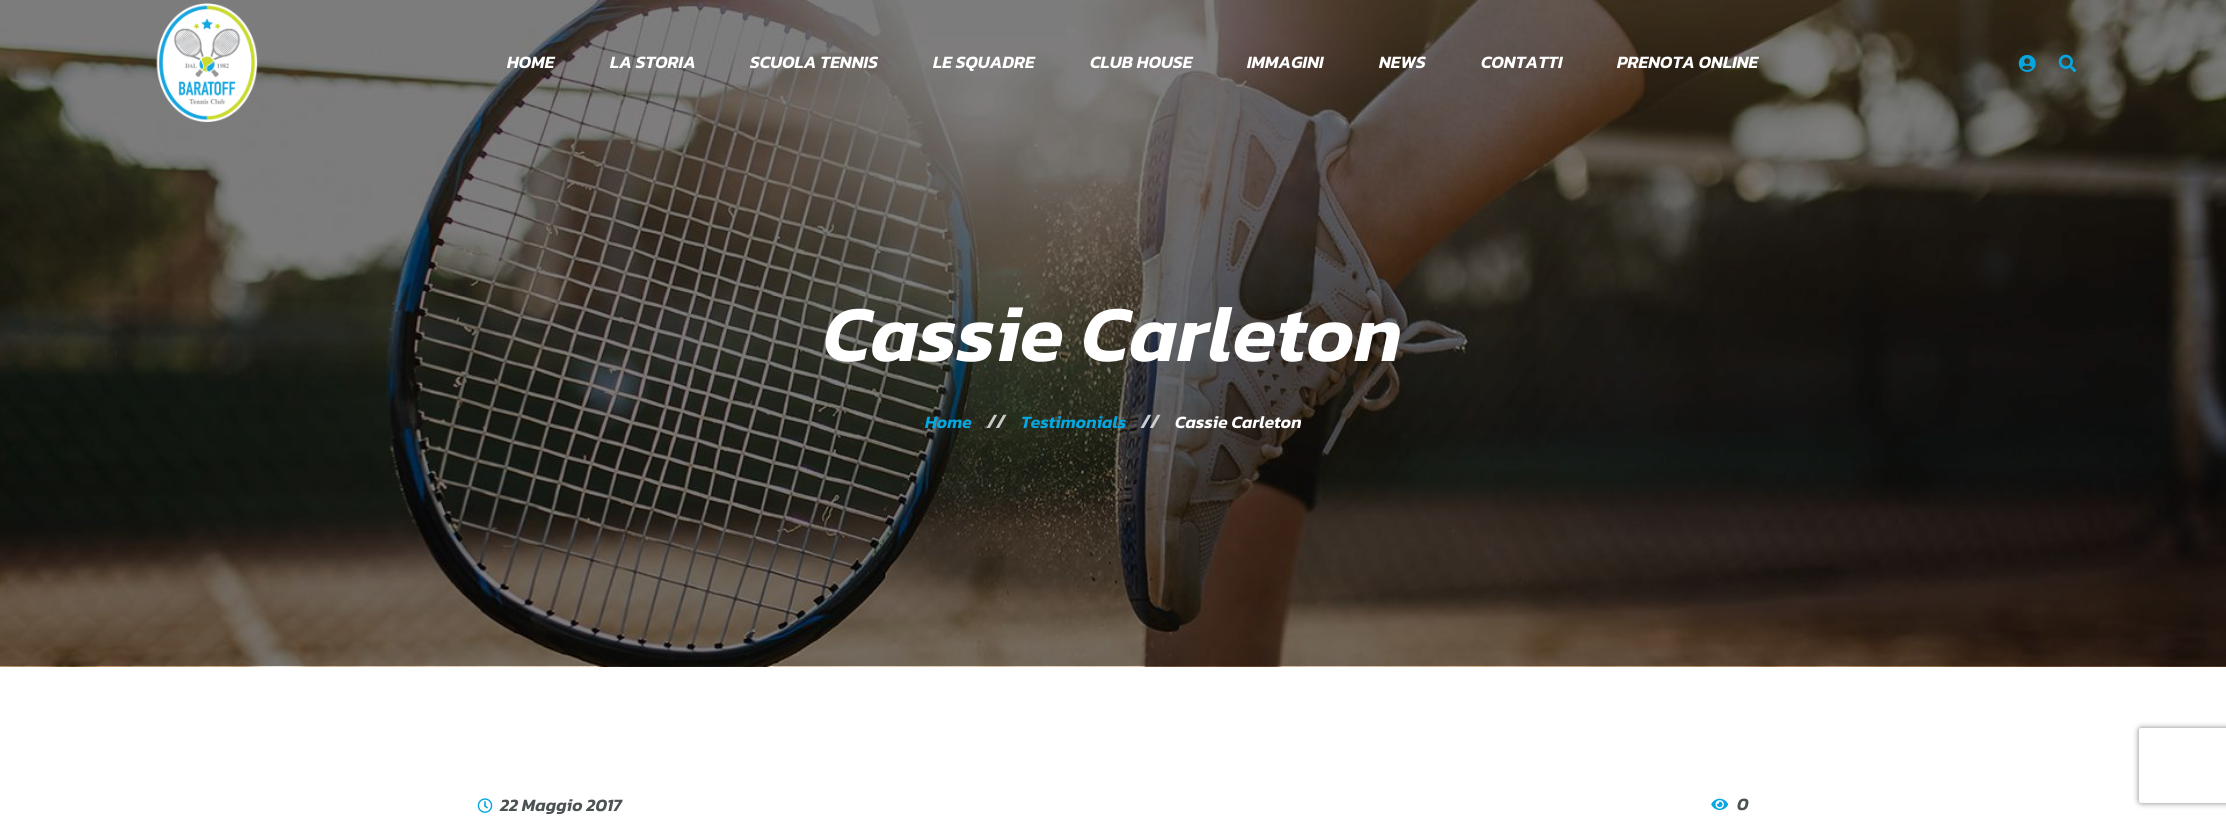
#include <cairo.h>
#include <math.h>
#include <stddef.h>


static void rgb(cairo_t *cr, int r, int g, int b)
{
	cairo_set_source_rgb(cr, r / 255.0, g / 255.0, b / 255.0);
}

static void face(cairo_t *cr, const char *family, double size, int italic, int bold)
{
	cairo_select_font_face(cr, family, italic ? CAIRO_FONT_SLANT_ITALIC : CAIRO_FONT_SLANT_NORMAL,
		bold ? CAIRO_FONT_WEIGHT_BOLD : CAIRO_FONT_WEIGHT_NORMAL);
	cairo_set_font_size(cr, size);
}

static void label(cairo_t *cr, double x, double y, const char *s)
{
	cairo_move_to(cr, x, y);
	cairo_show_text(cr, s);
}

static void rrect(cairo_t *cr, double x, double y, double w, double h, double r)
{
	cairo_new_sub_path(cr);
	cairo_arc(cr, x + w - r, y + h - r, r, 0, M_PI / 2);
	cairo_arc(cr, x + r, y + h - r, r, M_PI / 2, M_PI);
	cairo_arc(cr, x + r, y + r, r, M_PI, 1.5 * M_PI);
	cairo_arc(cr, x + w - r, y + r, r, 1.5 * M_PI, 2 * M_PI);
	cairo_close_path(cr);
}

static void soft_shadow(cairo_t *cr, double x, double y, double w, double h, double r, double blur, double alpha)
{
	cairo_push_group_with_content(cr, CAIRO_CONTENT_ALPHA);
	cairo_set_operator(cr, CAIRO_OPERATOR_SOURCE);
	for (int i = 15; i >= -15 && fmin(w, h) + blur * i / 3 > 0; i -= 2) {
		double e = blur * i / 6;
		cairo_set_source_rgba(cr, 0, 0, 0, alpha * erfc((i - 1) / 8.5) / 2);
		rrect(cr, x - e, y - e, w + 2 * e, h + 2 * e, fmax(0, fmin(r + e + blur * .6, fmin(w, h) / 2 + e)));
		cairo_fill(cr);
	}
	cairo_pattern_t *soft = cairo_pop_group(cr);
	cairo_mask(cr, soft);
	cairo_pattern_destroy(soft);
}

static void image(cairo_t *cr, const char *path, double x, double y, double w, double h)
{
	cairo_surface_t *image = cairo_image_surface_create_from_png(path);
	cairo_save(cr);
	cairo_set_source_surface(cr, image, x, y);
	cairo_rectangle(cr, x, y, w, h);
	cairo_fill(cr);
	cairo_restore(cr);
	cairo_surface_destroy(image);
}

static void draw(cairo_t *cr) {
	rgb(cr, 255, 255, 255);
	cairo_paint(cr);
	image(cr, "image3.png", 0, 0, 2226, 667);
	image(cr, "image0.png", 156, 3, 102, 120);
	face(cr, "Kanit SemiBold", 17.5, 1, 0);
	rgb(cr, 255, 255, 255);
	label(cr, 507, 68, "HOME");
	label(cr, 610, 68, "LA STORIA");
	label(cr, 750, 68, "SCUOLA TENNIS");
	label(cr, 933, 68, "LE SQUADRE");
	label(cr, 1090, 68, "CLUB HOUSE");
	label(cr, 1247, 68, "IMMAGINI");
	label(cr, 1379, 68, "NEWS");
	label(cr, 1481, 68, "CONTATTI");
	label(cr, 1617, 68, "PRENOTA ONLINE");
	image(cr, "image1.png", 2018, 55, 18, 17);
	image(cr, "image2.png", 2058, 54, 19, 19);
	face(cr, "Kanit SemiBold", 80, 1, 0);
	label(cr, 823, 361, "Cassie Carleton");
	face(cr, "Kanit SemiBold", 17.5, 1, 0);
	rgb(cr, 6, 167, 224);
	label(cr, 925, 428, "Home");
	face(cr, "Kanit SemiBold", 20, 1, 0);
	rgb(cr, 201, 202, 199);
	label(cr, 987, 428, "//");
	face(cr, "Kanit SemiBold", 17.5, 1, 0);
	rgb(cr, 6, 167, 224);
	label(cr, 1021, 428, "Testimonials");
	face(cr, "Kanit SemiBold", 20, 1, 0);
	rgb(cr, 205, 206, 208);
	label(cr, 1141, 428, "//");
	face(cr, "Kanit SemiBold", 17.5, 1, 0);
	rgb(cr, 255, 255, 255);
	label(cr, 1175, 428, "Cassie Carleton");
	image(cr, "image4.png", 477, 798, 16, 15);
	rgb(cr, 76, 82, 83);
	label(cr, 500, 811, "22 Maggio 2017");
	image(cr, "image5.png", 1711, 798, 18, 12);
	label(cr, 1737, 810, "0");
	cairo_save(cr);
	cairo_set_fill_rule(cr, CAIRO_FILL_RULE_EVEN_ODD);
	cairo_new_path(cr);
	cairo_move_to(cr, 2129, 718);
	cairo_line_to(cr, 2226, 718);
	cairo_line_to(cr, 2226, 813);
	cairo_line_to(cr, 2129, 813);
	cairo_close_path(cr);
	cairo_move_to(cr, 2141.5, 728);
	cairo_line_to(cr, 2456.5, 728);
	cairo_curve_to(cr, 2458, 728, 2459, 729, 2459, 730.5);
	cairo_line_to(cr, 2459, 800.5);
	cairo_curve_to(cr, 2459, 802, 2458, 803, 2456.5, 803);
	cairo_line_to(cr, 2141.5, 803);
	cairo_curve_to(cr, 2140, 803, 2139, 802, 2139, 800.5);
	cairo_line_to(cr, 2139, 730.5);
	cairo_curve_to(cr, 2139, 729, 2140, 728, 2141.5, 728);
	cairo_close_path(cr);
	cairo_clip(cr);
	rgb(cr, 128, 128, 128);
	soft_shadow(cr, 2139, 728, 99, 75, 2.5, 3, 1);
	cairo_restore(cr);
}

int main(void) {
	cairo_surface_t *surface = cairo_image_surface_create(CAIRO_FORMAT_RGB24, 2226, 819);
	cairo_t *cr = cairo_create(surface);
	cairo_font_options_t *options = cairo_font_options_create();
	cairo_font_options_set_hint_metrics(options, CAIRO_HINT_METRICS_OFF);
	cairo_font_options_set_hint_style(options, CAIRO_HINT_STYLE_NONE);
	cairo_set_font_options(cr, options);
	cairo_set_miter_limit(cr, 4);
	draw(cr);
	cairo_surface_write_to_png(surface, "render.png");
	cairo_font_options_destroy(options);
	cairo_destroy(cr);
	cairo_surface_destroy(surface);
	return 0;
}
